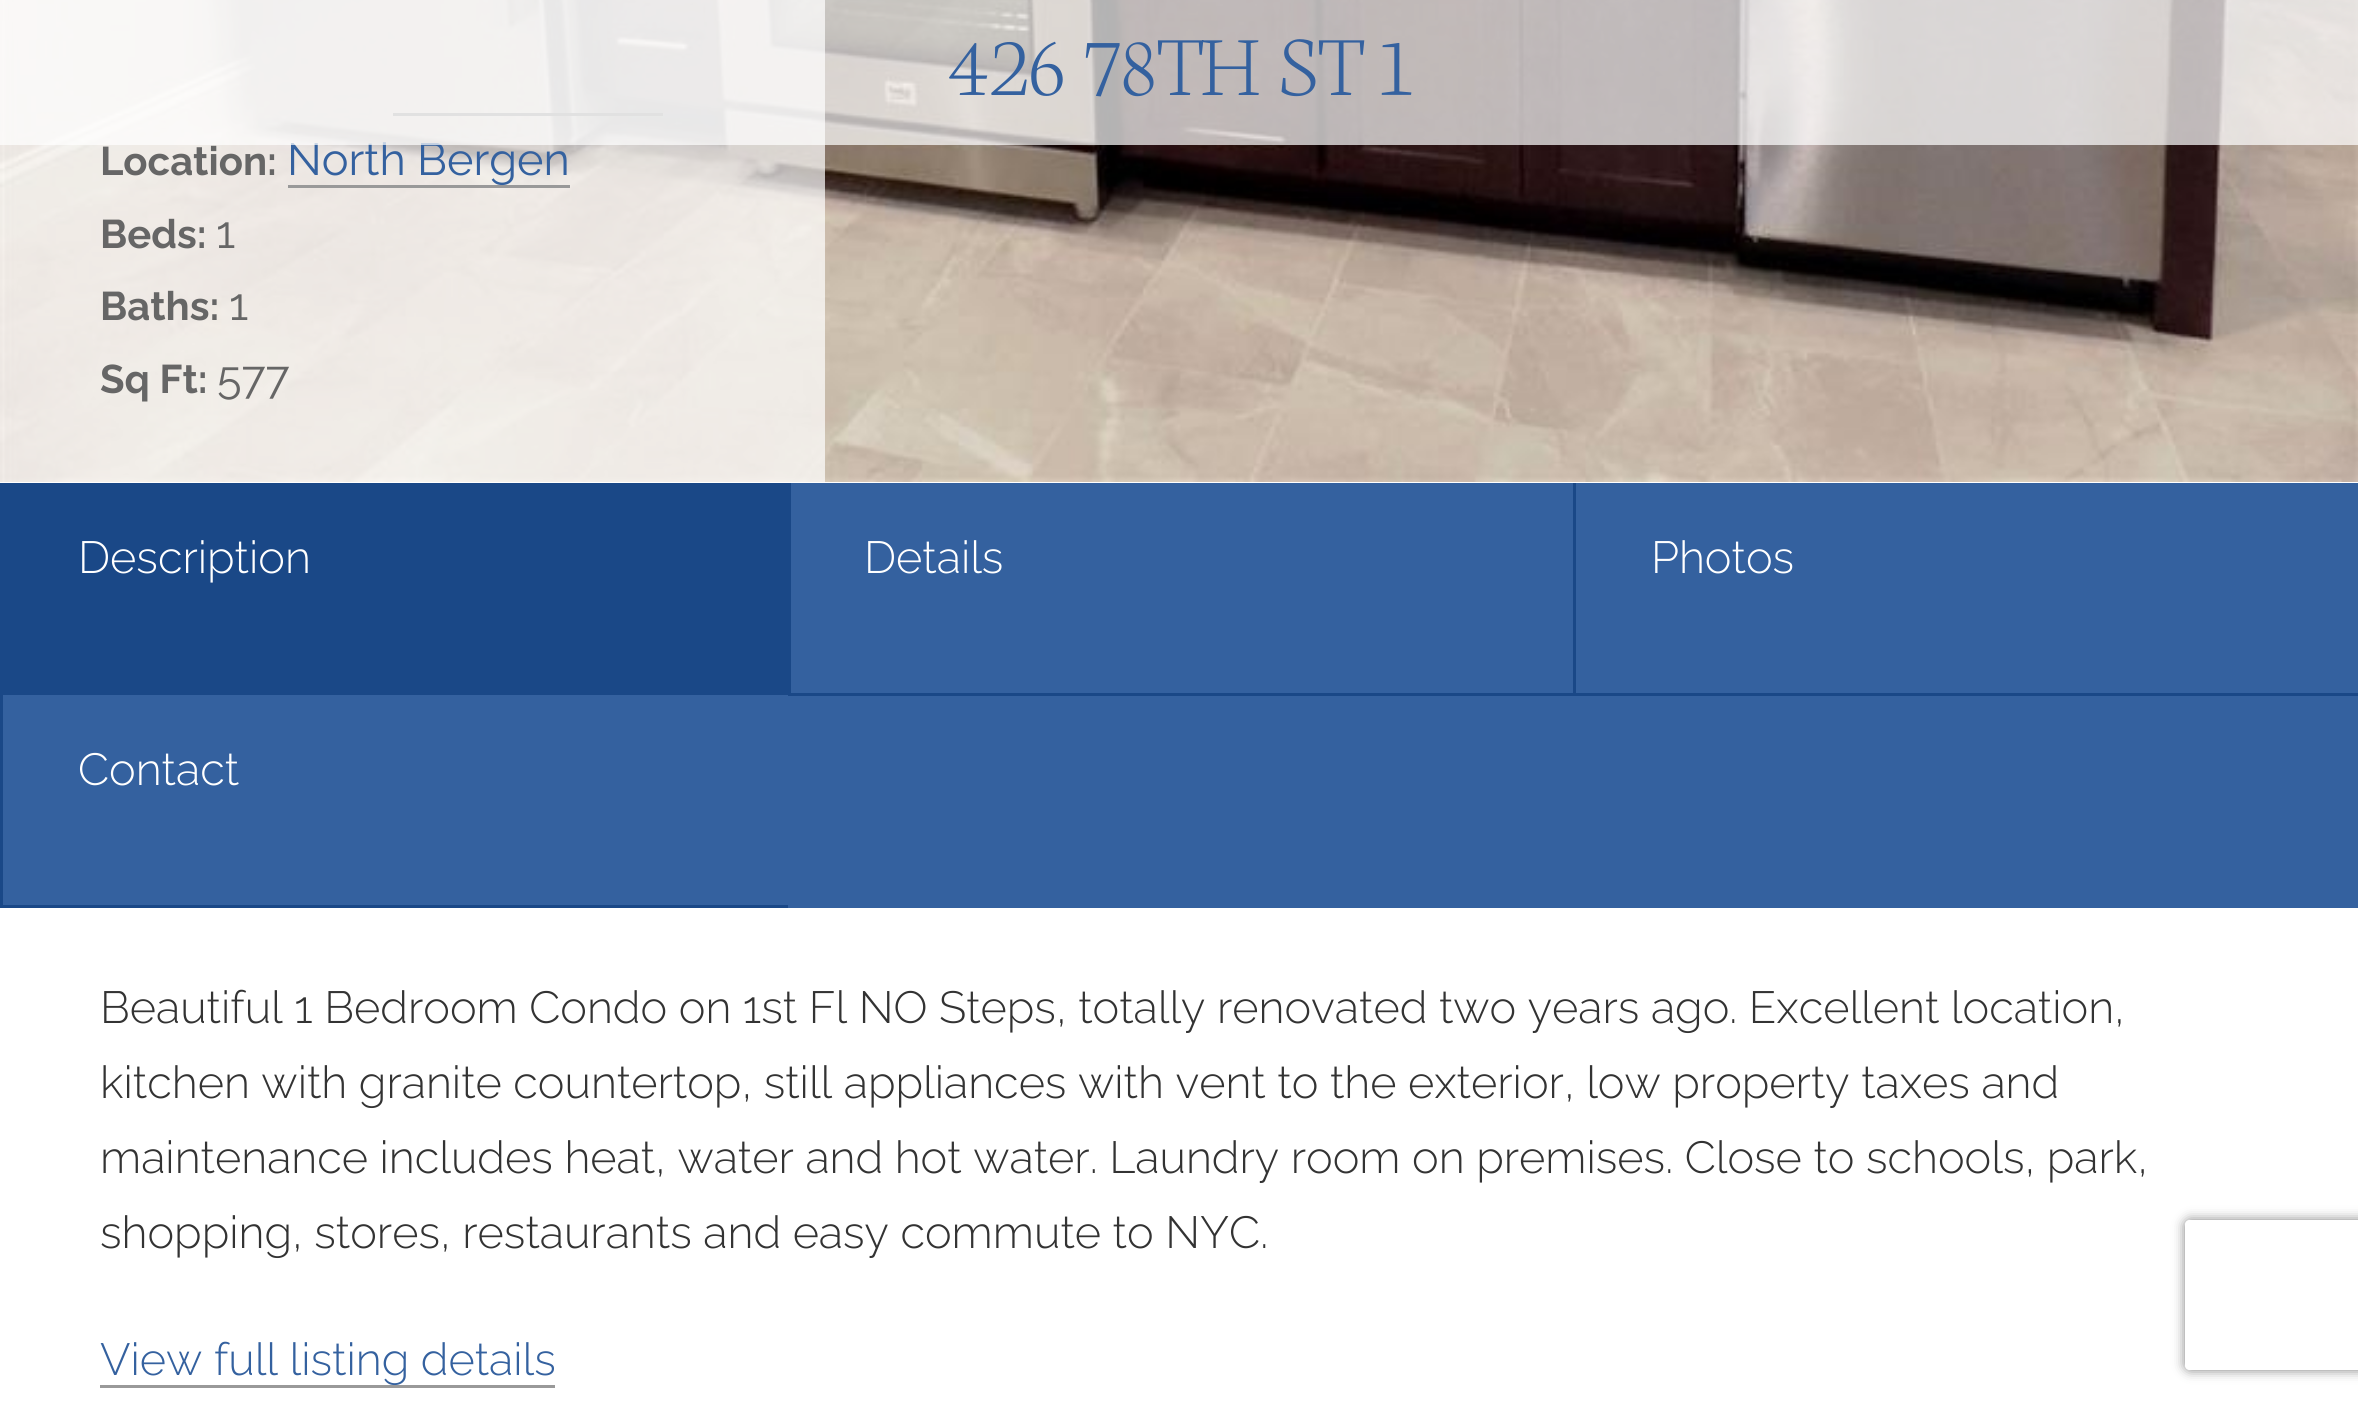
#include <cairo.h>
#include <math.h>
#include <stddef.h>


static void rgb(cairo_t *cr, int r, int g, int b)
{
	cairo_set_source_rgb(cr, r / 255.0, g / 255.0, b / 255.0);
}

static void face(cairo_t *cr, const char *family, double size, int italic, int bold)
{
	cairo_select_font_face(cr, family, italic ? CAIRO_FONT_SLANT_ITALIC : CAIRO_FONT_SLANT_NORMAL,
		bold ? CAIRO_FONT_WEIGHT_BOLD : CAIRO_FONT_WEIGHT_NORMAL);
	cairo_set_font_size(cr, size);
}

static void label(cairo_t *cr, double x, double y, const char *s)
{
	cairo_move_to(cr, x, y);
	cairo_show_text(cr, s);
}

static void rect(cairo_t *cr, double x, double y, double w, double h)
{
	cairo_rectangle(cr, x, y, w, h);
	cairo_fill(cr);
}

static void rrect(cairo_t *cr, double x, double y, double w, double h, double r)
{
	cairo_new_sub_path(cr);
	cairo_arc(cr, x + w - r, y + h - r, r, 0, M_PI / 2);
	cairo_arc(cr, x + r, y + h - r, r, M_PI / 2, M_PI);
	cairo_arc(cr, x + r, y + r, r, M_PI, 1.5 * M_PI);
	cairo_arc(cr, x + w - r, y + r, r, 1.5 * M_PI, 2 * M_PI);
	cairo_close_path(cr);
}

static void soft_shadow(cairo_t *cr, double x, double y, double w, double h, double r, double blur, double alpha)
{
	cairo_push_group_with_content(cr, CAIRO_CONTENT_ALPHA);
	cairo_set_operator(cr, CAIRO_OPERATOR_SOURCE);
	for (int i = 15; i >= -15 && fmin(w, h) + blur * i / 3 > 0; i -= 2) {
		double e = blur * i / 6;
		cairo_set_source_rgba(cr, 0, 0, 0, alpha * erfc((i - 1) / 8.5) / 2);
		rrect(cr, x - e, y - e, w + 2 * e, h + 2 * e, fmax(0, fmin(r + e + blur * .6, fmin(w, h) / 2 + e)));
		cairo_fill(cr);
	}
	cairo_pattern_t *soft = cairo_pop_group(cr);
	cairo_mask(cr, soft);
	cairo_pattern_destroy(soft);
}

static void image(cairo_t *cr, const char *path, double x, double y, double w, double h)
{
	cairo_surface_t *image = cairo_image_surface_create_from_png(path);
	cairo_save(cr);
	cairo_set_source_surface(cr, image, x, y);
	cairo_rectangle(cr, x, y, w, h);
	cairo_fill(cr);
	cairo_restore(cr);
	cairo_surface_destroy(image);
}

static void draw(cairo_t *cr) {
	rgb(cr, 255, 255, 255);
	cairo_paint(cr);
	image(cr, "image0.png", 0, 0, 2358, 482);
	cairo_set_source_rgba(cr, 1, 1, 1, 0.7);
	rect(cr, 0, 0, 825, 482);
	rgb(cr, 153, 153, 153);
	rect(cr, 393, 113, 270, 3);
	rect(cr, 288, 185, 282, 3);
	face(cr, "Raleway", 45, 0, 0);
	rgb(cr, 52, 97, 159);
	label(cr, 287, 175, "North Bergen");
	cairo_set_source_rgba(cr, 1, 1, 1, 0.7);
	rect(cr, 0, 0, 2358, 145);
	face(cr, "Neuton ExtraLight", 90, 0, 0);
	rgb(cr, 52, 97, 159);
	label(cr, 947, 95, "426 78TH ST 1");
	face(cr, "Raleway", 40, 0, 1);
	rgb(cr, 102, 102, 102);
	label(cr, 100, 175, "Location:");
	label(cr, 100, 248, "Beds:");
	face(cr, "Raleway", 45, 0, 0);
	label(cr, 216, 248, "1");
	face(cr, "Raleway", 40, 0, 1);
	label(cr, 100, 320, "Baths:");
	face(cr, "Raleway", 45, 0, 0);
	label(cr, 229, 320, "1");
	face(cr, "Raleway", 40, 0, 1);
	label(cr, 100, 393, "Sq Ft:");
	face(cr, "Raleway", 45, 0, 0);
	label(cr, 217, 393, "577");
	rgb(cr, 52, 97, 159);
	rect(cr, 788, 483, 1570, 425);
	rgb(cr, 26, 72, 135);
	rect(cr, 0, 483, 788, 212);
	face(cr, "Raleway Light", 45, 0, 0);
	rgb(cr, 255, 255, 255);
	label(cr, 78, 573, "Description");
	rgb(cr, 26, 72, 135);
	rect(cr, 788, 693, 1570, 3);
	rect(cr, 788, 483, 3, 212);
	rgb(cr, 255, 255, 255);
	label(cr, 864, 573, "Details");
	rgb(cr, 26, 72, 135);
	rect(cr, 1573, 483, 3, 212);
	rgb(cr, 255, 255, 255);
	label(cr, 1651, 573, "Photos");
	rgb(cr, 52, 97, 159);
	rect(cr, 3, 695, 785, 210);
	rgb(cr, 26, 72, 135);
	rect(cr, 0, 905, 788, 3);
	rect(cr, 0, 695, 3, 213);
	rgb(cr, 255, 255, 255);
	label(cr, 78, 785, "Contact");
	rgb(cr, 51, 51, 51);
	label(cr, 100, 1023, "Beautiful 1 Bedroom Condo on 1st Fl NO Steps, totally renovated two years ago. Excellent location,");
	label(cr, 100, 1098, "kitchen with granite countertop, still appliances with vent to the exterior, low property taxes and");
	label(cr, 100, 1173, "maintenance includes heat, water and hot water. Laundry room on premises. Close to schools, park,");
	label(cr, 100, 1248, "shopping, stores, restaurants and easy commute to NYC.");
	rgb(cr, 153, 153, 153);
	rect(cr, 100, 1385, 455, 3);
	rgb(cr, 52, 97, 159);
	label(cr, 100, 1375, "View full listing details");
	cairo_save(cr);
	cairo_set_fill_rule(cr, CAIRO_FILL_RULE_EVEN_ODD);
	cairo_new_path(cr);
	cairo_move_to(cr, 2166, 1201);
	cairo_line_to(cr, 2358, 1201);
	cairo_line_to(cr, 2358, 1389);
	cairo_line_to(cr, 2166, 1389);
	cairo_close_path(cr);
	cairo_move_to(cr, 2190, 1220);
	cairo_line_to(cr, 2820, 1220);
	cairo_curve_to(cr, 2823, 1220, 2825, 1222, 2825, 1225);
	cairo_line_to(cr, 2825, 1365);
	cairo_curve_to(cr, 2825, 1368, 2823, 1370, 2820, 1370);
	cairo_line_to(cr, 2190, 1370);
	cairo_curve_to(cr, 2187, 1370, 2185, 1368, 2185, 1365);
	cairo_line_to(cr, 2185, 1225);
	cairo_curve_to(cr, 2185, 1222, 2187, 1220, 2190, 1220);
	cairo_close_path(cr);
	cairo_clip(cr);
	rgb(cr, 128, 128, 128);
	soft_shadow(cr, 2185, 1220, 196, 150, 5, 6, 1);
	cairo_restore(cr);
}

int main(void) {
	cairo_surface_t *surface = cairo_image_surface_create(CAIRO_FORMAT_RGB24, 2358, 1403);
	cairo_t *cr = cairo_create(surface);
	cairo_font_options_t *options = cairo_font_options_create();
	cairo_font_options_set_hint_metrics(options, CAIRO_HINT_METRICS_OFF);
	cairo_font_options_set_hint_style(options, CAIRO_HINT_STYLE_NONE);
	cairo_set_font_options(cr, options);
	cairo_set_miter_limit(cr, 4);
	draw(cr);
	cairo_surface_write_to_png(surface, "render.png");
	cairo_font_options_destroy(options);
	cairo_destroy(cr);
	cairo_surface_destroy(surface);
	return 0;
}
